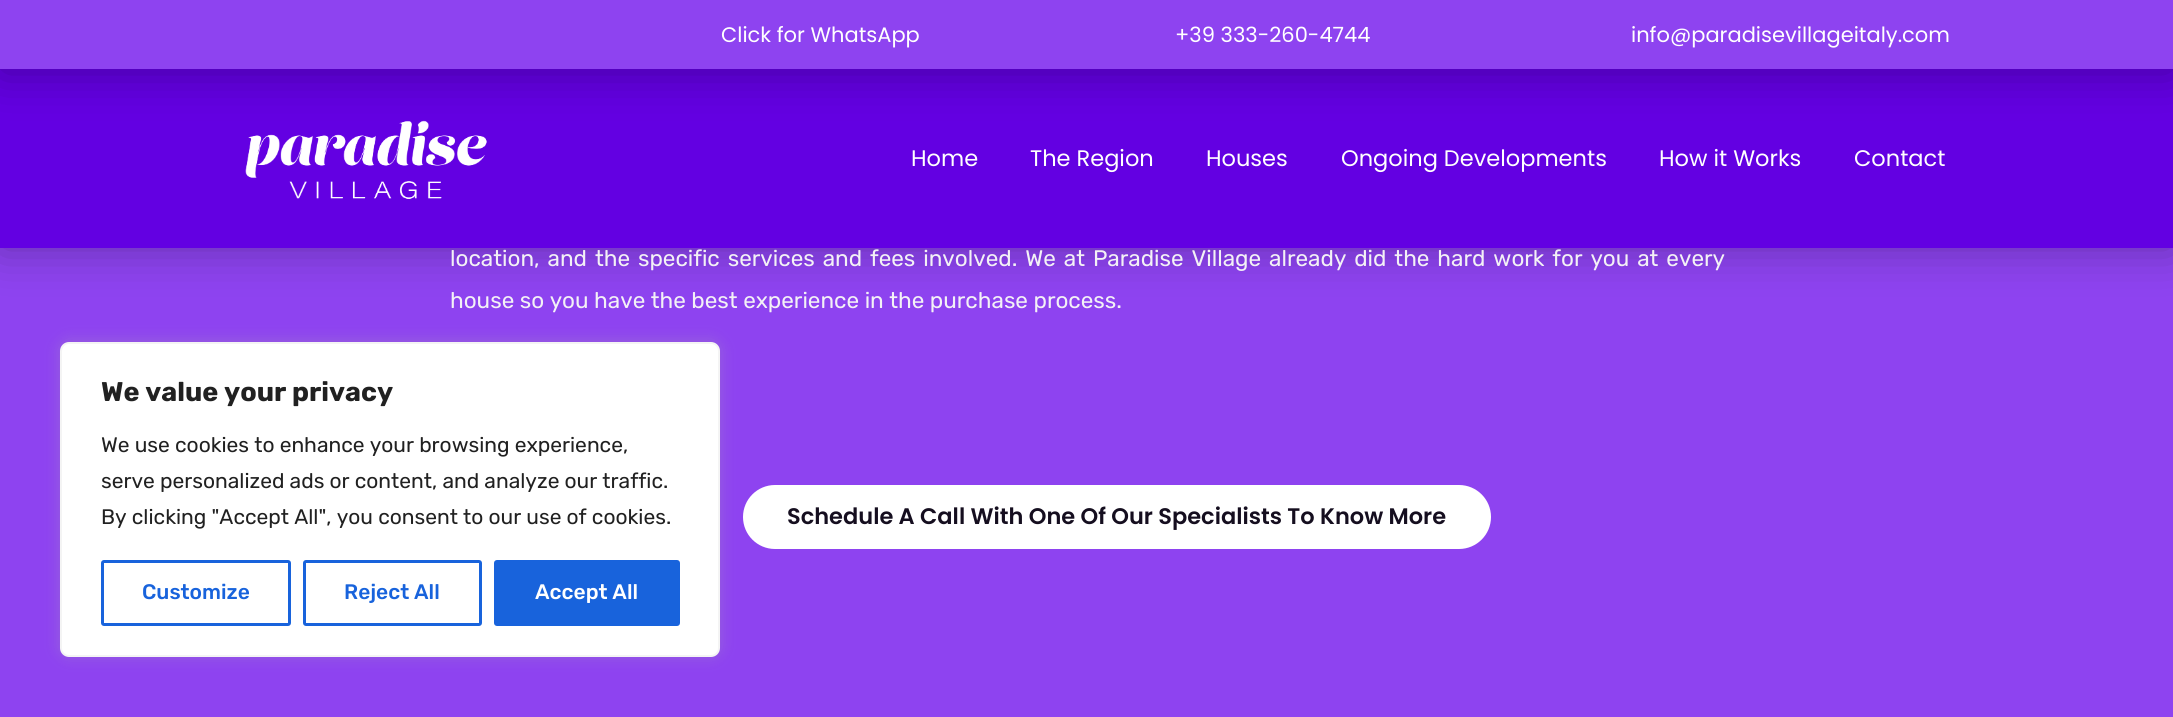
#include <cairo.h>
#include <math.h>
#include <stddef.h>


static void rgb(cairo_t *cr, int r, int g, int b)
{
	cairo_set_source_rgb(cr, r / 255.0, g / 255.0, b / 255.0);
}

static void face(cairo_t *cr, const char *family, double size, int italic, int bold)
{
	cairo_select_font_face(cr, family, italic ? CAIRO_FONT_SLANT_ITALIC : CAIRO_FONT_SLANT_NORMAL,
		bold ? CAIRO_FONT_WEIGHT_BOLD : CAIRO_FONT_WEIGHT_NORMAL);
	cairo_set_font_size(cr, size);
}

static void label(cairo_t *cr, double x, double y, const char *s)
{
	cairo_move_to(cr, x, y);
	cairo_show_text(cr, s);
}

static void tracked(cairo_t *cr, double x, double y, const char *s, double letter, double word)
{
	cairo_move_to(cr, x, y);
	while (*s) {
		char ch[5] = {0};
		int n = 0;
		do ch[n++] = *s++; while ((*s & 0xC0) == 0x80);
		cairo_show_text(cr, ch);
		cairo_rel_move_to(cr, letter + word * (*ch == ' '), 0);
	}
}

static void rect(cairo_t *cr, double x, double y, double w, double h)
{
	cairo_rectangle(cr, x, y, w, h);
	cairo_fill(cr);
}

static void rrect(cairo_t *cr, double x, double y, double w, double h, double r)
{
	cairo_new_sub_path(cr);
	cairo_arc(cr, x + w - r, y + h - r, r, 0, M_PI / 2);
	cairo_arc(cr, x + r, y + h - r, r, M_PI / 2, M_PI);
	cairo_arc(cr, x + r, y + r, r, M_PI, 1.5 * M_PI);
	cairo_arc(cr, x + w - r, y + r, r, 1.5 * M_PI, 2 * M_PI);
	cairo_close_path(cr);
}

static void soft_shadow(cairo_t *cr, double x, double y, double w, double h, double r, double blur, double alpha)
{
	cairo_push_group_with_content(cr, CAIRO_CONTENT_ALPHA);
	cairo_set_operator(cr, CAIRO_OPERATOR_SOURCE);
	for (int i = 15; i >= -15 && fmin(w, h) + blur * i / 3 > 0; i -= 2) {
		double e = blur * i / 6;
		cairo_set_source_rgba(cr, 0, 0, 0, alpha * erfc((i - 1) / 8.5) / 2);
		rrect(cr, x - e, y - e, w + 2 * e, h + 2 * e, fmax(0, fmin(r + e + blur * .6, fmin(w, h) / 2 + e)));
		cairo_fill(cr);
	}
	cairo_pattern_t *soft = cairo_pop_group(cr);
	cairo_mask(cr, soft);
	cairo_pattern_destroy(soft);
}

static void image(cairo_t *cr, const char *path, double x, double y, double w, double h)
{
	cairo_surface_t *image = cairo_image_surface_create_from_png(path);
	cairo_save(cr);
	cairo_set_source_surface(cr, image, x, y);
	cairo_rectangle(cr, x, y, w, h);
	cairo_fill(cr);
	cairo_restore(cr);
	cairo_surface_destroy(image);
}

static void draw(cairo_t *cr) {
	rgb(cr, 142, 67, 240);
	cairo_paint(cr);
	rgb(cr, 255, 255, 255);
	rrect(cr, 743, 485, 748, 64, 32);
	cairo_fill(cr);
	rgb(cr, 172, 171, 171);
	soft_shadow(cr, 60, 341, 660, 315, 9, 7.5, 0.3);
	rgb(cr, 255, 255, 255);
	rrect(cr, 61, 343, 658, 313, 8);
	cairo_fill_preserve(cr);
	rgb(cr, 244, 244, 244);
	cairo_stroke(cr);
	face(cr, "Rubik", 27, 0, 1);
	rgb(cr, 33, 33, 33);
	label(cr, 101, 401, "We value your privacy");
	face(cr, "Rubik", 21, 0, 0);
	label(cr, 101, 452, "We use cookies to enhance your browsing experience,");
	label(cr, 101, 488, "serve personalized ads or content, and analyze our traffic.");
	label(cr, 101, 524, "By clicking \"Accept All\", you consent to our use of cookies.");
	rrect(cr, 102.5, 561.5, 187, 63, 1.5);
	rgb(cr, 24, 99, 220);
	cairo_set_line_width(cr, 3);
	cairo_stroke(cr);
	face(cr, "Rubik Medium", 21, 0, 0);
	label(cr, 142, 599, "Customize");
	rrect(cr, 304.5, 561.5, 176, 63, 1.5);
	cairo_stroke(cr);
	label(cr, 344, 599, "Reject All");
	rrect(cr, 495.5, 561.5, 183, 63, 1.5);
	cairo_fill_preserve(cr);
	cairo_stroke(cr);
	rgb(cr, 255, 255, 255);
	label(cr, 535, 599, "Accept All");
	rgb(cr, 0, 0, 0);
	soft_shadow(cr, 0, 69, 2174, 179, 0, 22.5, 0.3);
	rgb(cr, 99, 0, 226);
	rect(cr, 0, 69, 2173, 179);
	image(cr, "image0.png", 245, 120, 242, 79);
	rgb(cr, 0, 0, 0);
	soft_shadow(cr, 0, 3, 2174, 69, 0, 22.5, 0.3);
	rgb(cr, 142, 67, 240);
	rect(cr, 0, 0, 2173, 69);
	face(cr, "Poppins", 21, 0, 0);
	rgb(cr, 255, 255, 255);
	label(cr, 721, 42, "Click for WhatsApp");
	label(cr, 1175, 42, "+39 333-260-4744");
	label(cr, 1631, 42, "info@paradisevillageitaly.com");
	face(cr, "Poppins", 22.5, 0, 0);
	label(cr, 911, 166, "Home");
	label(cr, 1030, 166, "The Region");
	label(cr, 1206, 166, "Houses");
	label(cr, 1341, 166, "Ongoing Developments");
	label(cr, 1659, 166, "How it Works");
	label(cr, 1854, 166, "Contact");
	face(cr, "Rubik", 22.5, 0, 0);
	rgb(cr, 243, 241, 246);
	tracked(cr, 450, 266, "location, and the specific services and fees involved. We at Paradise Village already did the hard work for you at every", 0, 2.4);
	label(cr, 450, 308, "house so you have the best experience in the purchase process.");
	face(cr, "Poppins SemiBold", 22.5, 0, 0);
	rgb(cr, 21, 14, 31);
	label(cr, 787, 524, "Schedule A Call With One Of Our Specialists To Know More");
}

int main(void) {
	cairo_surface_t *surface = cairo_image_surface_create(CAIRO_FORMAT_RGB24, 2173, 717);
	cairo_t *cr = cairo_create(surface);
	cairo_font_options_t *options = cairo_font_options_create();
	cairo_font_options_set_hint_metrics(options, CAIRO_HINT_METRICS_OFF);
	cairo_font_options_set_hint_style(options, CAIRO_HINT_STYLE_NONE);
	cairo_set_font_options(cr, options);
	cairo_set_miter_limit(cr, 4);
	draw(cr);
	cairo_surface_write_to_png(surface, "render.png");
	cairo_font_options_destroy(options);
	cairo_destroy(cr);
	cairo_surface_destroy(surface);
	return 0;
}
